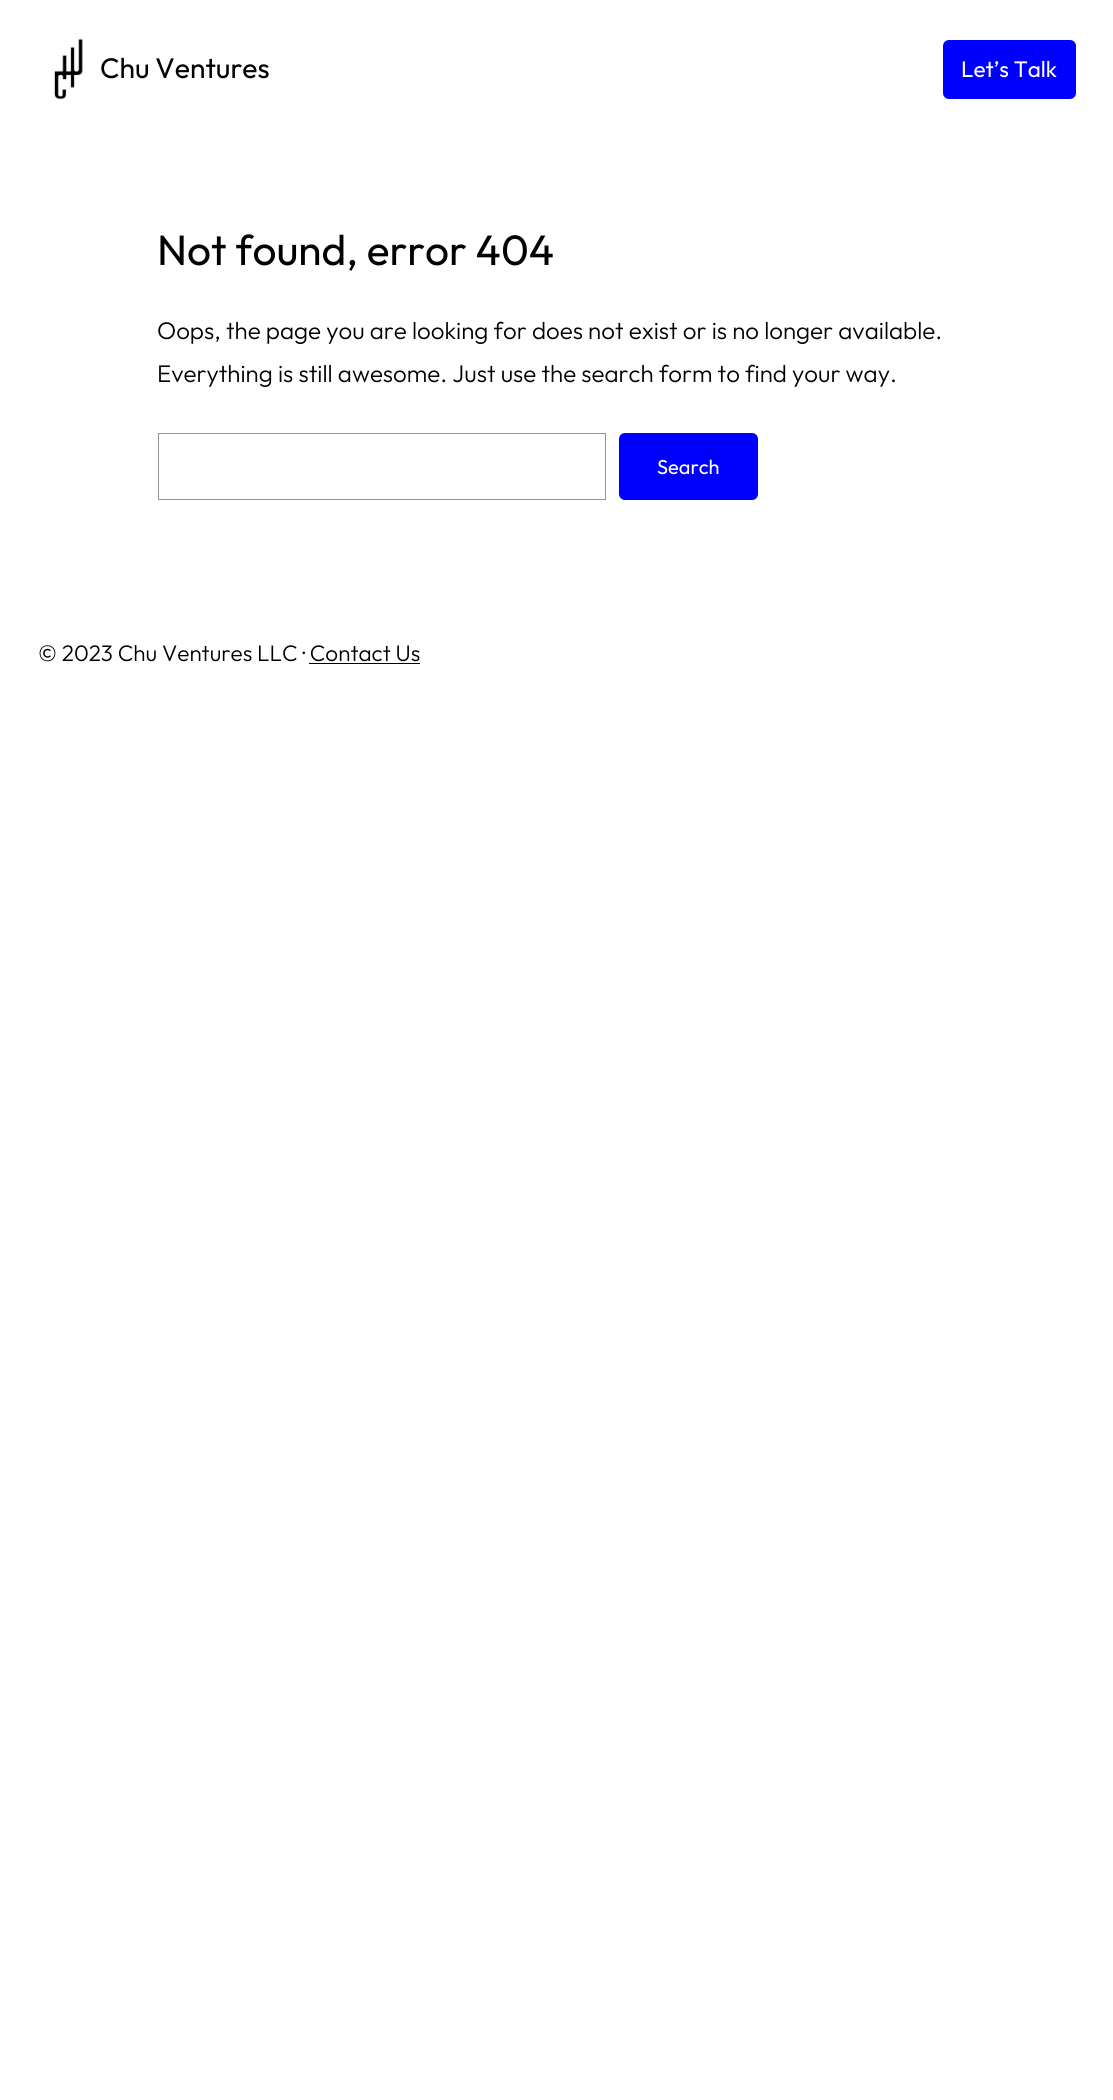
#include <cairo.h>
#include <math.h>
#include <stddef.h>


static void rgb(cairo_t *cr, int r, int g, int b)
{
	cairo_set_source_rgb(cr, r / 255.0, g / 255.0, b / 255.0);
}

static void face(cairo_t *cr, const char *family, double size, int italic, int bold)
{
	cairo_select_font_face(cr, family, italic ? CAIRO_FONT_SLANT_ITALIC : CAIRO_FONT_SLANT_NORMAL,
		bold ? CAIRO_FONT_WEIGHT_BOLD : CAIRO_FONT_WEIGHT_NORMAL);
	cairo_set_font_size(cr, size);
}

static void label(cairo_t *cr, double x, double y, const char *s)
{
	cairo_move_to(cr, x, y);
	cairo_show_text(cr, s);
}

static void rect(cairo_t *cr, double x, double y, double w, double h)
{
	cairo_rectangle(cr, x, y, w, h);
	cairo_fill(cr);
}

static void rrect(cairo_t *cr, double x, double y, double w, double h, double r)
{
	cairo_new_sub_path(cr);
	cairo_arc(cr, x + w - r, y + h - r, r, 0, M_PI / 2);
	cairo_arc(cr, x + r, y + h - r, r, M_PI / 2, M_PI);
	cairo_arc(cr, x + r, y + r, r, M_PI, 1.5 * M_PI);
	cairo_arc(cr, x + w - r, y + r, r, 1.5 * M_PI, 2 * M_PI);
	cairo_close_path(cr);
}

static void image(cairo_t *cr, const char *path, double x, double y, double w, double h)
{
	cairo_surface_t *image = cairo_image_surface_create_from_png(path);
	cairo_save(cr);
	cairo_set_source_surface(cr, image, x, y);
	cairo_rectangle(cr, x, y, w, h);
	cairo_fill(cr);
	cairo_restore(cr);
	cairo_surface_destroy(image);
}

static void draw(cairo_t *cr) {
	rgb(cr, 255, 255, 255);
	cairo_paint(cr);
	image(cr, "image0.png", 54, 39, 29, 61);
	face(cr, "Outfit", 28.25, 0, 0);
	rgb(cr, 0, 0, 0);
	label(cr, 100, 78, "Chu Ventures");
	rgb(cr, 0, 0, 255);
	rrect(cr, 943, 40, 133, 59, 6);
	cairo_fill(cr);
	face(cr, "Outfit", 22.5, 0, 0);
	rgb(cr, 255, 255, 255);
	label(cr, 961, 77, "Let’s Talk");
	face(cr, "Outfit", 42.4, 0, 0);
	rgb(cr, 0, 0, 0);
	label(cr, 157, 265, "Not found, error 404");
	face(cr, "Outfit Light", 24.1, 0, 0);
	label(cr, 157, 339, "Oops, the page you are looking for does not exist or is no longer available.");
	label(cr, 157, 382, "Everything is still awesome. Just use the search form to find your way.");
	cairo_rectangle(cr, 158.5, 433.5, 447, 66);
	rgb(cr, 148, 148, 148);
	cairo_set_line_width(cr, 1);
	cairo_stroke(cr);
	rgb(cr, 0, 0, 255);
	rrect(cr, 619, 433, 139, 67, 6);
	cairo_fill(cr);
	face(cr, "Outfit", 20, 0, 0);
	rgb(cr, 255, 255, 255);
	label(cr, 657, 474, "Search");
	face(cr, "Outfit Light", 22.5, 0, 0);
	rgb(cr, 0, 0, 0);
	label(cr, 38, 661, "© 2023 Chu Ventures LLC · Contact Us");
	rect(cr, 309, 663, 111, 1);
}

int main(void) {
	cairo_surface_t *surface = cairo_image_surface_create(CAIRO_FORMAT_RGB24, 1113, 2100);
	cairo_t *cr = cairo_create(surface);
	cairo_font_options_t *options = cairo_font_options_create();
	cairo_font_options_set_hint_metrics(options, CAIRO_HINT_METRICS_OFF);
	cairo_font_options_set_hint_style(options, CAIRO_HINT_STYLE_NONE);
	cairo_set_font_options(cr, options);
	cairo_set_miter_limit(cr, 4);
	draw(cr);
	cairo_surface_write_to_png(surface, "render.png");
	cairo_font_options_destroy(options);
	cairo_destroy(cr);
	cairo_surface_destroy(surface);
	return 0;
}
